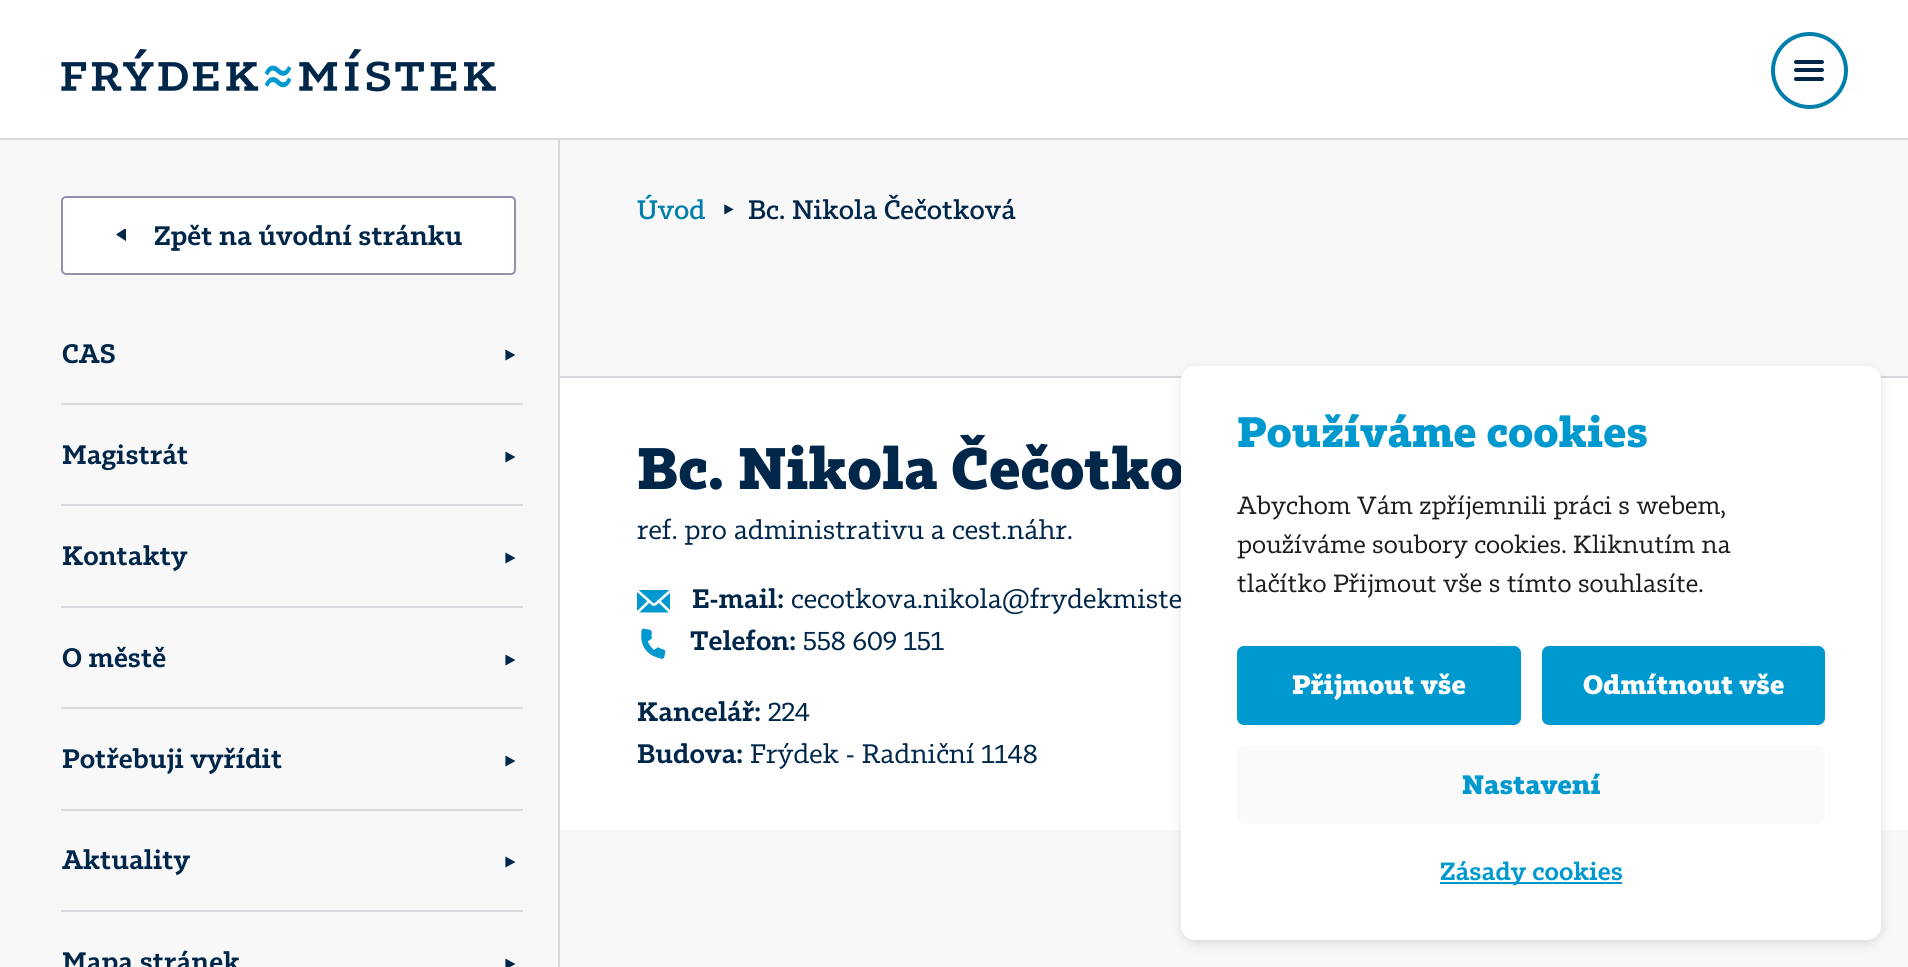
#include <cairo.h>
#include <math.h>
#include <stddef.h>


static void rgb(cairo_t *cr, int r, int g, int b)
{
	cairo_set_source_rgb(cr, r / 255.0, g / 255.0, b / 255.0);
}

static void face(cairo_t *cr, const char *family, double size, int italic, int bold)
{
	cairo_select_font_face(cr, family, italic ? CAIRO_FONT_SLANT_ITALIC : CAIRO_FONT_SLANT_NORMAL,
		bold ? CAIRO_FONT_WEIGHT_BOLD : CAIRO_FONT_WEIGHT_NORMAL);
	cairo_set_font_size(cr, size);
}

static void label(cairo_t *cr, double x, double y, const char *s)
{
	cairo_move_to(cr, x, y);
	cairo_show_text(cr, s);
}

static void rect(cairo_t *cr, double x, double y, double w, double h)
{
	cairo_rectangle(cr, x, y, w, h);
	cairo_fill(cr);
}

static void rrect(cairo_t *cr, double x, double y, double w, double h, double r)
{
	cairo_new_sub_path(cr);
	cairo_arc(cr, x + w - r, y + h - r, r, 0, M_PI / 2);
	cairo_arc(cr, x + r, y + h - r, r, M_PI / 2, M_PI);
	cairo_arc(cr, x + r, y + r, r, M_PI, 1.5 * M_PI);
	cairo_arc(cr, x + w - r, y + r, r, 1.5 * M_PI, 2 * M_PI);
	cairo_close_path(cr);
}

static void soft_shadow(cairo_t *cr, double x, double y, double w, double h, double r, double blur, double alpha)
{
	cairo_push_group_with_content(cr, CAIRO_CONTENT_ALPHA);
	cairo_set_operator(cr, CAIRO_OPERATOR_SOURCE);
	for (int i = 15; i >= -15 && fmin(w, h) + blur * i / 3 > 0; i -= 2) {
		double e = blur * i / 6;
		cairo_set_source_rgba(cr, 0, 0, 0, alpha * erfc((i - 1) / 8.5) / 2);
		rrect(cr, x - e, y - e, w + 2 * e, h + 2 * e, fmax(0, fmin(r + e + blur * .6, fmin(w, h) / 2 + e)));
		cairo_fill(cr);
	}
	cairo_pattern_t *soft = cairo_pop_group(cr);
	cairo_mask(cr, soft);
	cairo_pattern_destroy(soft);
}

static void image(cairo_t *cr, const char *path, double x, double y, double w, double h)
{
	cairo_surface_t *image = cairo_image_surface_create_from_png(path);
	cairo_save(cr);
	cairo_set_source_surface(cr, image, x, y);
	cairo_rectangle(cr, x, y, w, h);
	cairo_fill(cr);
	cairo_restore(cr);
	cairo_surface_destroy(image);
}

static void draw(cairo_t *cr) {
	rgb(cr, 255, 255, 255);
	cairo_paint(cr);
	image(cr, "image0.png", 61, 49, 435, 43);
	cairo_arc(cr, 1809.5, 70.5, 36.5, 0, 2 * M_PI);
	rgb(cr, 0, 127, 173);
	cairo_set_line_width(cr, 4);
	cairo_stroke(cr);
	rgb(cr, 0, 38, 74);
	rrect(cr, 1794, 60, 30, 4, 2);
	cairo_fill(cr);
	rrect(cr, 1794, 68, 30, 4, 2);
	cairo_fill(cr);
	rrect(cr, 1794, 77, 30, 4, 2);
	cairo_fill(cr);
	rgb(cr, 217, 217, 221);
	rect(cr, 0, 138, 1908, 2);
	rgb(cr, 248, 248, 248);
	rect(cr, 0, 140, 558, 827);
	rgb(cr, 217, 217, 221);
	rect(cr, 558, 140, 2, 827);
	rgb(cr, 255, 255, 255);
	rrect(cr, 62, 197, 453, 77, 4);
	cairo_fill_preserve(cr);
	rgb(cr, 146, 146, 175);
	cairo_set_line_width(cr, 2);
	cairo_stroke(cr);
	cairo_save(cr);
	cairo_rectangle(cr, 116, 229, 10, 14);
	cairo_clip(cr);
	rgb(cr, 0, 38, 74);
	cairo_new_path(cr);
	cairo_move_to(cr, 116, 234.5);
	cairo_line_to(cr, 126.5, 227.5);
	cairo_line_to(cr, 126.5, 241.5);
	cairo_close_path(cr);
	cairo_fill(cr);
	cairo_restore(cr);
	face(cr, "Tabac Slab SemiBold", 26.3, 0, 0);
	rgb(cr, 0, 38, 74);
	label(cr, 154, 245, "Zpět na úvodní stránku");
	label(cr, 62, 363, "CAS");
	face(cr, "Tabac Slab SemiBold", 14, 0, 0);
	label(cr, 504, 360, "▶");
	rgb(cr, 217, 217, 221);
	rect(cr, 61, 403, 462, 2);
	face(cr, "Tabac Slab SemiBold", 26.3, 0, 0);
	rgb(cr, 0, 38, 74);
	label(cr, 62, 464, "Magistrát");
	face(cr, "Tabac Slab SemiBold", 14, 0, 0);
	label(cr, 504, 462, "▶");
	rgb(cr, 217, 217, 221);
	rect(cr, 61, 504, 462, 2);
	face(cr, "Tabac Slab SemiBold", 26.3, 0, 0);
	rgb(cr, 0, 38, 74);
	label(cr, 62, 565, "Kontakty");
	face(cr, "Tabac Slab SemiBold", 14, 0, 0);
	label(cr, 504, 563, "▶");
	rgb(cr, 217, 217, 221);
	rect(cr, 61, 606, 462, 2);
	face(cr, "Tabac Slab SemiBold", 26.3, 0, 0);
	rgb(cr, 0, 38, 74);
	label(cr, 62, 667, "O městě");
	face(cr, "Tabac Slab SemiBold", 14, 0, 0);
	label(cr, 504, 665, "▶");
	rgb(cr, 217, 217, 221);
	rect(cr, 61, 707, 462, 2);
	face(cr, "Tabac Slab SemiBold", 26.3, 0, 0);
	rgb(cr, 0, 38, 74);
	label(cr, 62, 768, "Potřebuji vyřídit");
	face(cr, "Tabac Slab SemiBold", 14, 0, 0);
	label(cr, 504, 766, "▶");
	rgb(cr, 217, 217, 221);
	rect(cr, 61, 809, 462, 2);
	face(cr, "Tabac Slab SemiBold", 26.3, 0, 0);
	rgb(cr, 0, 38, 74);
	label(cr, 62, 869, "Aktuality");
	face(cr, "Tabac Slab SemiBold", 14, 0, 0);
	label(cr, 504, 867, "▶");
	rgb(cr, 217, 217, 221);
	rect(cr, 61, 910, 462, 2);
	face(cr, "Tabac Slab SemiBold", 26.3, 0, 0);
	rgb(cr, 0, 38, 74);
	label(cr, 62, 971, "Mapa stránek");
	face(cr, "Tabac Slab SemiBold", 14, 0, 0);
	label(cr, 504, 969, "▶");
	rgb(cr, 248, 248, 248);
	rect(cr, 560, 140, 1348, 827);
	face(cr, "Tabac Slab Medium", 26.3, 0, 0);
	rgb(cr, 0, 127, 173);
	label(cr, 637, 219, "Úvod");
	face(cr, "Tabac Slab Medium", 13, 0, 0);
	rgb(cr, 0, 38, 74);
	label(cr, 723, 214, "▶");
	face(cr, "Tabac Slab Medium", 26.3, 0, 0);
	label(cr, 748, 219, "Bc. Nikola Čečotková");
	rgb(cr, 255, 255, 255);
	rect(cr, 560, 378, 1348, 452);
	rgb(cr, 217, 217, 221);
	rect(cr, 560, 376, 1348, 2);
	face(cr, "Tabac Slab", 57.6, 0, 1);
	rgb(cr, 0, 38, 74);
	label(cr, 637, 489, "Bc. Nikola Čečotko");
	face(cr, "Tabac Slab", 26.3, 0, 0);
	label(cr, 637, 539, "ref. pro administrativu a cest.náhr.");
	image(cr, "image1.png", 637, 590, 33, 23);
	face(cr, "Tabac Slab SemiBold", 26.3, 0, 0);
	label(cr, 692, 608, "E-mail:");
	face(cr, "Tabac Slab", 26.3, 0, 0);
	label(cr, 791, 608, "cecotkova.nikola@frydekmiste");
	image(cr, "image2.png", 641, 628, 25, 31);
	face(cr, "Tabac Slab SemiBold", 26.3, 0, 0);
	label(cr, 690, 650, "Telefon:");
	face(cr, "Tabac Slab", 26.3, 0, 0);
	label(cr, 803, 650, "558 609 151");
	face(cr, "Tabac Slab SemiBold", 26.3, 0, 0);
	label(cr, 637, 721, "Kancelář:");
	face(cr, "Tabac Slab", 26.3, 0, 0);
	label(cr, 768, 721, "224");
	face(cr, "Tabac Slab SemiBold", 26.3, 0, 0);
	label(cr, 637, 763, "Budova:");
	face(cr, "Tabac Slab", 26.3, 0, 0);
	label(cr, 750, 763, "Frýdek - Radniční 1148");
	rgb(cr, 0, 0, 0);
	soft_shadow(cr, 1185, 373, 693, 567, 11, 7, 0.2);
	rgb(cr, 255, 255, 255);
	rrect(cr, 1181, 366, 700, 574, 14);
	cairo_fill(cr);
	face(cr, "Tabac Slab", 42, 0, 1);
	rgb(cr, 0, 153, 207);
	label(cr, 1237, 447, "Používáme cookies");
	face(cr, "Tabac Slab", 24.5, 0, 0);
	rgb(cr, 29, 29, 29);
	label(cr, 1237, 514, "Abychom Vám zpříjemnili práci s webem,");
	label(cr, 1237, 553, "používáme soubory cookies. Kliknutím na");
	label(cr, 1237, 592, "tlačítko Přijmout vše s tímto souhlasíte.");
	rgb(cr, 0, 153, 207);
	rrect(cr, 1237, 646, 284, 79, 7);
	cairo_fill(cr);
	face(cr, "Tabac Slab", 26.25, 0, 1);
	rgb(cr, 255, 255, 255);
	label(cr, 1292, 694, "Přijmout vše");
	rgb(cr, 0, 153, 207);
	rrect(cr, 1542, 646, 283, 79, 7);
	cairo_fill(cr);
	rgb(cr, 255, 255, 255);
	label(cr, 1583, 694, "Odmítnout vše");
	rgb(cr, 250, 250, 250);
	rrect(cr, 1237, 746, 588, 78, 7);
	cairo_fill(cr);
	rgb(cr, 0, 153, 207);
	label(cr, 1462, 794, "Nastavení");
	rect(cr, 1440, 882, 182, 2);
	face(cr, "Tabac Slab SemiBold", 24.5, 0, 0);
	label(cr, 1440, 880, "Zásady cookies");
}

int main(void) {
	cairo_surface_t *surface = cairo_image_surface_create(CAIRO_FORMAT_RGB24, 1908, 967);
	cairo_t *cr = cairo_create(surface);
	cairo_font_options_t *options = cairo_font_options_create();
	cairo_font_options_set_hint_metrics(options, CAIRO_HINT_METRICS_OFF);
	cairo_font_options_set_hint_style(options, CAIRO_HINT_STYLE_NONE);
	cairo_set_font_options(cr, options);
	cairo_set_miter_limit(cr, 4);
	draw(cr);
	cairo_surface_write_to_png(surface, "render.png");
	cairo_font_options_destroy(options);
	cairo_destroy(cr);
	cairo_surface_destroy(surface);
	return 0;
}
